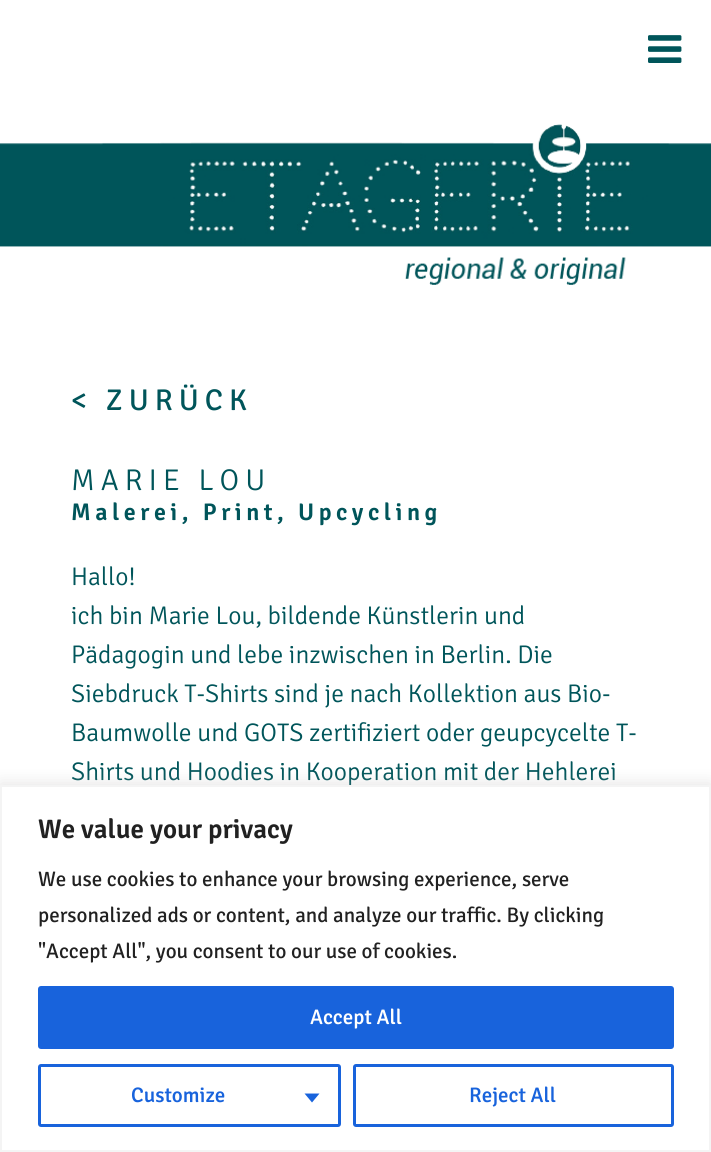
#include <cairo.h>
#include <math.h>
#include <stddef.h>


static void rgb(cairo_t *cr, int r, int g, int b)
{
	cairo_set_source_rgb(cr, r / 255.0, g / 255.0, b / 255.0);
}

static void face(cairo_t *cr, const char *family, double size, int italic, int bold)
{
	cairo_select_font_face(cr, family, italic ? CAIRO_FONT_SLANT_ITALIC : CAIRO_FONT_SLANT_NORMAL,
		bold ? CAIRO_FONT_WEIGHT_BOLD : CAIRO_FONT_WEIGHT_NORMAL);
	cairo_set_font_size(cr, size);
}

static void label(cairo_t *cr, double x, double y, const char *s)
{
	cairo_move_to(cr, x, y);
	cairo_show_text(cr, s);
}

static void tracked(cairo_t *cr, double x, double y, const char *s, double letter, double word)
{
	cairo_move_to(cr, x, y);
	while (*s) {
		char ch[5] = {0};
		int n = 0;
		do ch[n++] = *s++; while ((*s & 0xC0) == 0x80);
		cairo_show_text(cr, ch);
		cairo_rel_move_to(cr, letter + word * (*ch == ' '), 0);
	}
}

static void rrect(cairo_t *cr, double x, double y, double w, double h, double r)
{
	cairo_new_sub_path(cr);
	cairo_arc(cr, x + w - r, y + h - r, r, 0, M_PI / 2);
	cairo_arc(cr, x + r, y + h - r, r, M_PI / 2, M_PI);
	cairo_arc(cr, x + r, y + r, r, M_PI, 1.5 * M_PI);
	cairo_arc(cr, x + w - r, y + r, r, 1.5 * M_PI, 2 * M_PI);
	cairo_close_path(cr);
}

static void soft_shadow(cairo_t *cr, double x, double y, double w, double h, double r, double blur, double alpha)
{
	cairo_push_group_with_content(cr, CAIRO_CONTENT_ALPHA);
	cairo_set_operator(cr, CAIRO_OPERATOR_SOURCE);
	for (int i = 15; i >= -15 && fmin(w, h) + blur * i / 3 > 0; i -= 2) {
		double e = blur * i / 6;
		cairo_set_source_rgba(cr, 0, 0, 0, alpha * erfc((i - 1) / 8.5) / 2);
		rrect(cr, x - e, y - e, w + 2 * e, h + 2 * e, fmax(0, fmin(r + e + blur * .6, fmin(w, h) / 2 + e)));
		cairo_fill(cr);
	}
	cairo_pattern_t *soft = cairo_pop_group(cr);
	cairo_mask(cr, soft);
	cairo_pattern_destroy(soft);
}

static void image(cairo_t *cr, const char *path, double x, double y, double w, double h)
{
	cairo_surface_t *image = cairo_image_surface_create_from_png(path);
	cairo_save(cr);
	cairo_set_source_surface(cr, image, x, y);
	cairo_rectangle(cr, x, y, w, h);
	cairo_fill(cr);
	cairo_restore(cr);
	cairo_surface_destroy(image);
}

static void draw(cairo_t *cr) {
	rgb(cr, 255, 255, 255);
	cairo_paint(cr);
	image(cr, "image0.png", 648, 35, 34, 28);
	image(cr, "image1.png", 0, 124, 711, 161);
	face(cr, "Signika", 30, 0, 0);
	rgb(cr, 0, 85, 90);
	tracked(cr, 71, 410, "< ZURÜCK", 6, 0);
	face(cr, "Signika Light", 30, 0, 0);
	tracked(cr, 71, 490, "MARIE LOU", 6, 0);
	face(cr, "Signika SemiBold", 24, 0, 0);
	tracked(cr, 71, 520, "Malerei, Print, Upcycling", 4.5, 0);
	face(cr, "Signika Light", 25.5, 0, 0);
	label(cr, 71, 585, "Hallo!");
	label(cr, 71, 624, "ich bin Marie Lou, bildende Künstlerin und");
	label(cr, 71, 663, "Pädagogin und lebe inzwischen in Berlin. Die");
	label(cr, 71, 702, "Siebdruck T-Shirts sind je nach Kollektion aus Bio-");
	label(cr, 71, 741, "Baumwolle und GOTS zertifiziert oder geupcycelte T-");
	label(cr, 71, 780, "Shirts und Hoodies in Kooperation mit der Hehlerei");
	rgb(cr, 172, 171, 171);
	soft_shadow(cr, 0, 783, 711, 368, 0, 7.5, 0.3);
	rgb(cr, 255, 255, 255);
	cairo_rectangle(cr, 1, 786, 709, 365);
	cairo_fill_preserve(cr);
	rgb(cr, 244, 244, 244);
	cairo_stroke(cr);
	face(cr, "Signika SemiBold", 27, 0, 0);
	rgb(cr, 33, 33, 33);
	label(cr, 38, 838, "We value your privacy");
	face(cr, "Signika", 21, 0, 0);
	label(cr, 38, 886, "We use cookies to enhance your browsing experience, serve");
	label(cr, 38, 922, "personalized ads or content, and analyze our traffic. By clicking");
	label(cr, 38, 958, "\"Accept All\", you consent to our use of cookies.");
	rgb(cr, 24, 99, 220);
	rrect(cr, 39.5, 987.5, 633, 60, 1.5);
	cairo_fill_preserve(cr);
	cairo_set_line_width(cr, 3);
	cairo_stroke(cr);
	face(cr, "Signika Medium", 21, 0, 0);
	rgb(cr, 255, 255, 255);
	label(cr, 310, 1024, "Accept All");
	rrect(cr, 39.5, 1065.5, 300, 60, 1.5);
	rgb(cr, 24, 99, 220);
	cairo_stroke(cr);
	label(cr, 131, 1102, "Customize");
	cairo_new_path(cr);
	cairo_move_to(cr, 304.5, 1093.5);
	cairo_line_to(cr, 319.5, 1093.5);
	cairo_line_to(cr, 312, 1102.5);
	cairo_close_path(cr);
	cairo_fill(cr);
	rrect(cr, 354.5, 1065.5, 318, 60, 1.5);
	cairo_stroke(cr);
	label(cr, 469, 1102, "Reject All");
}

int main(void) {
	cairo_surface_t *surface = cairo_image_surface_create(CAIRO_FORMAT_RGB24, 711, 1152);
	cairo_t *cr = cairo_create(surface);
	cairo_font_options_t *options = cairo_font_options_create();
	cairo_font_options_set_hint_metrics(options, CAIRO_HINT_METRICS_OFF);
	cairo_font_options_set_hint_style(options, CAIRO_HINT_STYLE_NONE);
	cairo_set_font_options(cr, options);
	cairo_set_miter_limit(cr, 4);
	draw(cr);
	cairo_surface_write_to_png(surface, "render.png");
	cairo_font_options_destroy(options);
	cairo_destroy(cr);
	cairo_surface_destroy(surface);
	return 0;
}
